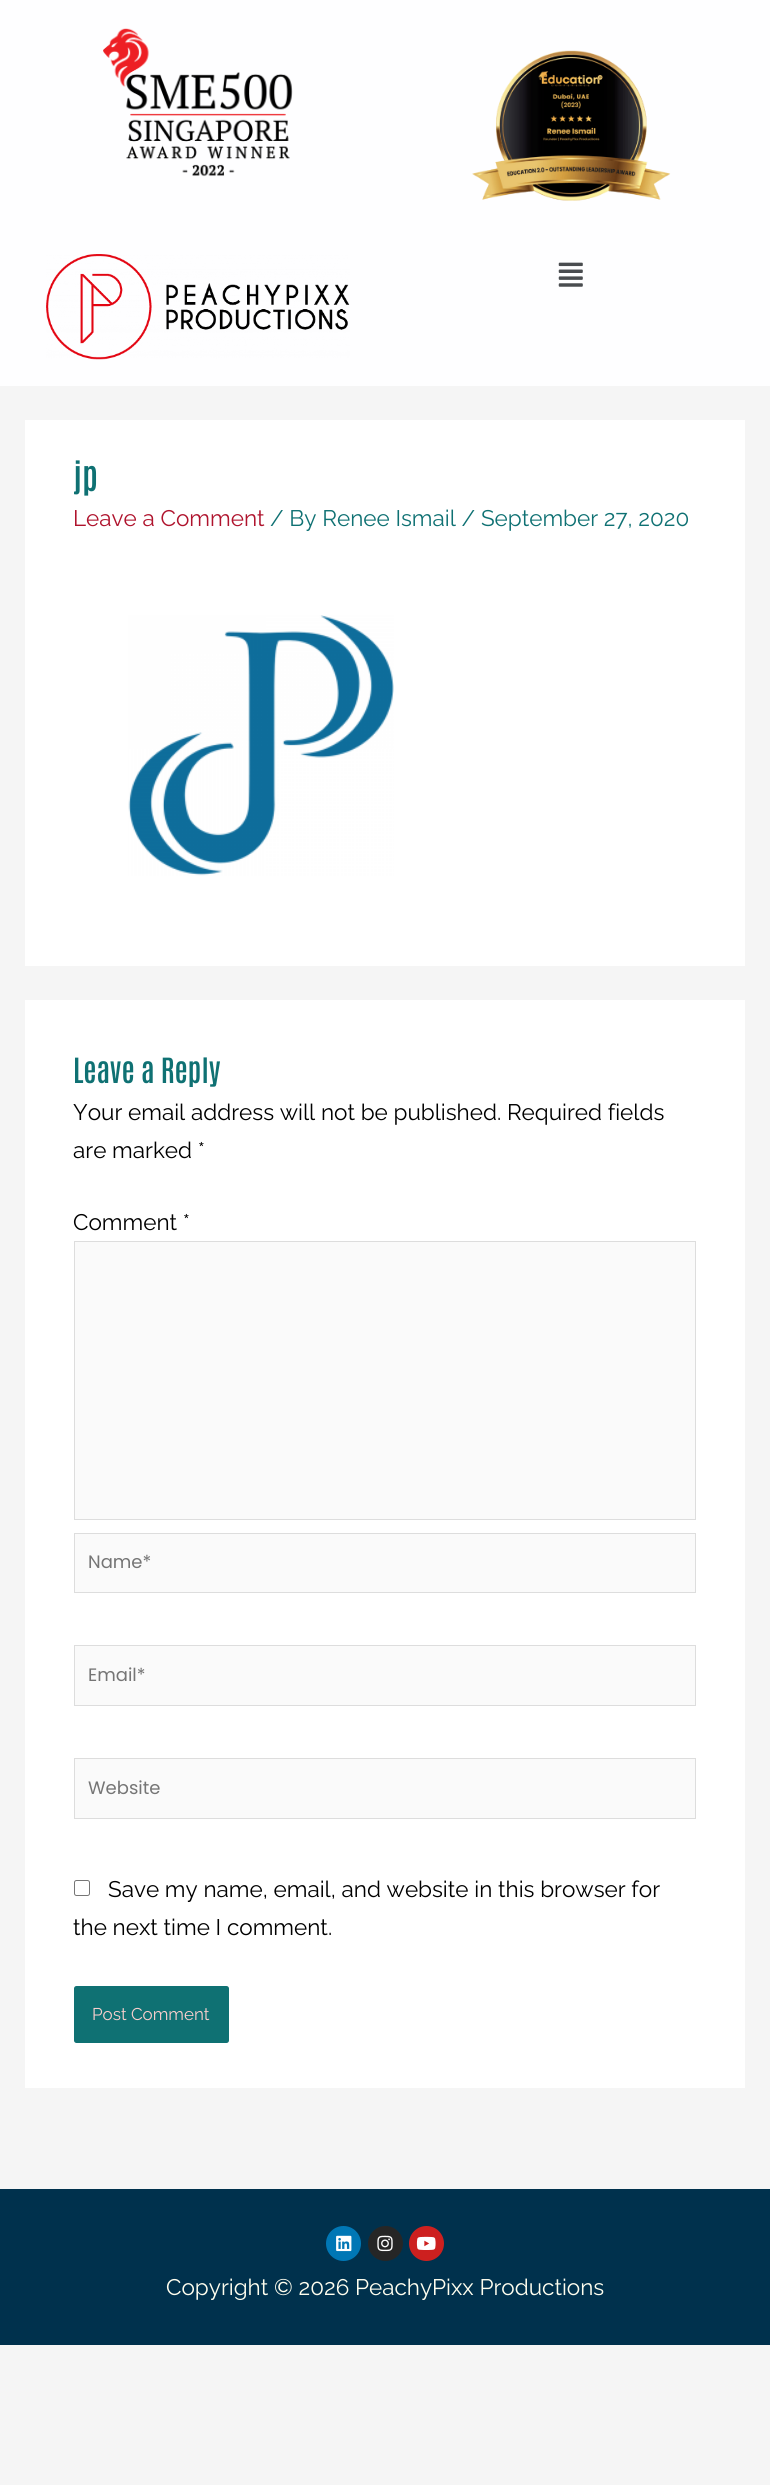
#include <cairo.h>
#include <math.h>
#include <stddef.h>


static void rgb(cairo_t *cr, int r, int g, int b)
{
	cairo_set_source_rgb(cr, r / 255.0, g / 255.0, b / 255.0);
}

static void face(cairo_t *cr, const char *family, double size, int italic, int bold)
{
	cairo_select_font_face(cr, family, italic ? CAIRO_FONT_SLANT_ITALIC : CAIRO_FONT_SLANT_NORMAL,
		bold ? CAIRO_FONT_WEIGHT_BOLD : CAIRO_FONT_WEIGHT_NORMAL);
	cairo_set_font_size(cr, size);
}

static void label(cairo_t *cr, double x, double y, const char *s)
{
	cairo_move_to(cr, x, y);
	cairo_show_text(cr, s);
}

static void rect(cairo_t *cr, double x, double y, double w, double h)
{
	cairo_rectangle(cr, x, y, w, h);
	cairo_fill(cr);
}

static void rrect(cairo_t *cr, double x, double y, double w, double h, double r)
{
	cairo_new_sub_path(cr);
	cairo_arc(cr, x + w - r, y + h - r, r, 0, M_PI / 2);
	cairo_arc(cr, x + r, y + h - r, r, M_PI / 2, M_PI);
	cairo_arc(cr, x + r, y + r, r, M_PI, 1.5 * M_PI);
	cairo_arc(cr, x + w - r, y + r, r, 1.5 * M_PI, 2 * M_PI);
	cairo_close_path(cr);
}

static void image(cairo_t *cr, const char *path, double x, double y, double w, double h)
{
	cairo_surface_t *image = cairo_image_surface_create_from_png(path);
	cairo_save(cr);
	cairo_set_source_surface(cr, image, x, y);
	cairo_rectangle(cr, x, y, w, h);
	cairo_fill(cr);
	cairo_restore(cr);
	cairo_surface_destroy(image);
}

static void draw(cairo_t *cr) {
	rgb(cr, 245, 245, 245);
	cairo_paint(cr);
	rgb(cr, 254, 254, 255);
	rect(cr, 0, 0, 770, 386);
	image(cr, "image0.png", 103, 28, 190, 149);
	image(cr, "image1.png", 472, 50, 199, 151);
	image(cr, "image2.png", 46, 254, 304, 106);
	image(cr, "image3.png", 558, 262, 25, 25);
	rgb(cr, 255, 255, 255);
	rect(cr, 25, 420, 720, 546);
	face(cr, "Antonio SemiBold", 34, 0, 0);
	rgb(cr, 15, 113, 115);
	label(cr, 73, 491, "jp");
	face(cr, "Raleway", 22.5, 0, 0);
	rgb(cr, 175, 19, 45);
	label(cr, 73, 526, "Leave a Comment");
	rgb(cr, 15, 113, 115);
	label(cr, 270, 526, "/ By Renee Ismail / September 27, 2020");
	image(cr, "image4.png", 128, 615, 266, 261);
	rgb(cr, 255, 255, 255);
	rect(cr, 25, 1000, 720, 1088);
	face(cr, "Antonio SemiBold", 29.5, 0, 0);
	rgb(cr, 15, 113, 115);
	label(cr, 73, 1083, "Leave a Reply");
	face(cr, "Raleway", 22.5, 0, 0);
	rgb(cr, 0, 0, 0);
	label(cr, 73, 1120, "Your email address will not be published. Required fields");
	label(cr, 73, 1158, "are marked *");
	label(cr, 73, 1230, "Comment *");
	rgb(cr, 250, 250, 250);
	cairo_rectangle(cr, 74.5, 1241.5, 621, 278);
	cairo_fill_preserve(cr);
	rgb(cr, 221, 221, 221);
	cairo_set_line_width(cr, 1);
	cairo_stroke(cr);
	rgb(cr, 250, 250, 250);
	cairo_rectangle(cr, 74.5, 1533.5, 621, 59);
	cairo_fill_preserve(cr);
	rgb(cr, 221, 221, 221);
	cairo_stroke(cr);
	face(cr, "Poppins", 18, 0, 0);
	rgb(cr, 117, 117, 117);
	label(cr, 88, 1568, "Name*");
	rgb(cr, 250, 250, 250);
	cairo_rectangle(cr, 74.5, 1645.5, 621, 60);
	cairo_fill_preserve(cr);
	rgb(cr, 221, 221, 221);
	cairo_stroke(cr);
	rgb(cr, 117, 117, 117);
	label(cr, 88, 1681, "Email*");
	rgb(cr, 250, 250, 250);
	cairo_rectangle(cr, 74.5, 1758.5, 621, 60);
	cairo_fill_preserve(cr);
	rgb(cr, 221, 221, 221);
	cairo_stroke(cr);
	rgb(cr, 117, 117, 117);
	label(cr, 88, 1794, "Website");
	rrect(cr, 74.5, 1880.5, 15, 15, 2);
	rgb(cr, 118, 118, 118);
	cairo_stroke(cr);
	face(cr, "Raleway", 22.5, 0, 0);
	rgb(cr, 0, 0, 0);
	label(cr, 108, 1897, "Save my name, email, and website in this browser for");
	label(cr, 73, 1935, "the next time I comment.");
	rgb(cr, 15, 113, 115);
	rrect(cr, 74, 1986, 155, 57, 2.5);
	cairo_fill(cr);
	face(cr, "Raleway", 17, 0, 0);
	rgb(cr, 250, 207, 205);
	label(cr, 92, 2020, "Post Comment");
	rgb(cr, 0, 49, 77);
	rect(cr, 0, 2189, 770, 156);
	rgb(cr, 0, 119, 181);
	cairo_new_path(cr);
	cairo_arc(cr, 343.5, 2243.5, 17.5, 0, 2 * M_PI);
	cairo_fill(cr);
	image(cr, "image5.png", 336, 2235, 16, 17);
	rgb(cr, 38, 38, 38);
	cairo_arc(cr, 385.5, 2243.5, 17.5, 0, 2 * M_PI);
	cairo_fill(cr);
	image(cr, "image6.png", 377, 2235, 16, 17);
	rgb(cr, 205, 32, 31);
	cairo_arc(cr, 426.5, 2243.5, 17.5, 0, 2 * M_PI);
	cairo_fill(cr);
	image(cr, "image7.png", 416, 2236, 20, 14);
	face(cr, "Raleway", 22.5, 0, 0);
	rgb(cr, 255, 254, 239);
	label(cr, 166, 2295, "Copyright © 2026 PeachyPixx Productions");
}

int main(void) {
	cairo_surface_t *surface = cairo_image_surface_create(CAIRO_FORMAT_RGB24, 770, 2485);
	cairo_t *cr = cairo_create(surface);
	cairo_font_options_t *options = cairo_font_options_create();
	cairo_font_options_set_hint_metrics(options, CAIRO_HINT_METRICS_OFF);
	cairo_font_options_set_hint_style(options, CAIRO_HINT_STYLE_NONE);
	cairo_set_font_options(cr, options);
	cairo_set_miter_limit(cr, 4);
	draw(cr);
	cairo_surface_write_to_png(surface, "render.png");
	cairo_font_options_destroy(options);
	cairo_destroy(cr);
	cairo_surface_destroy(surface);
	return 0;
}
